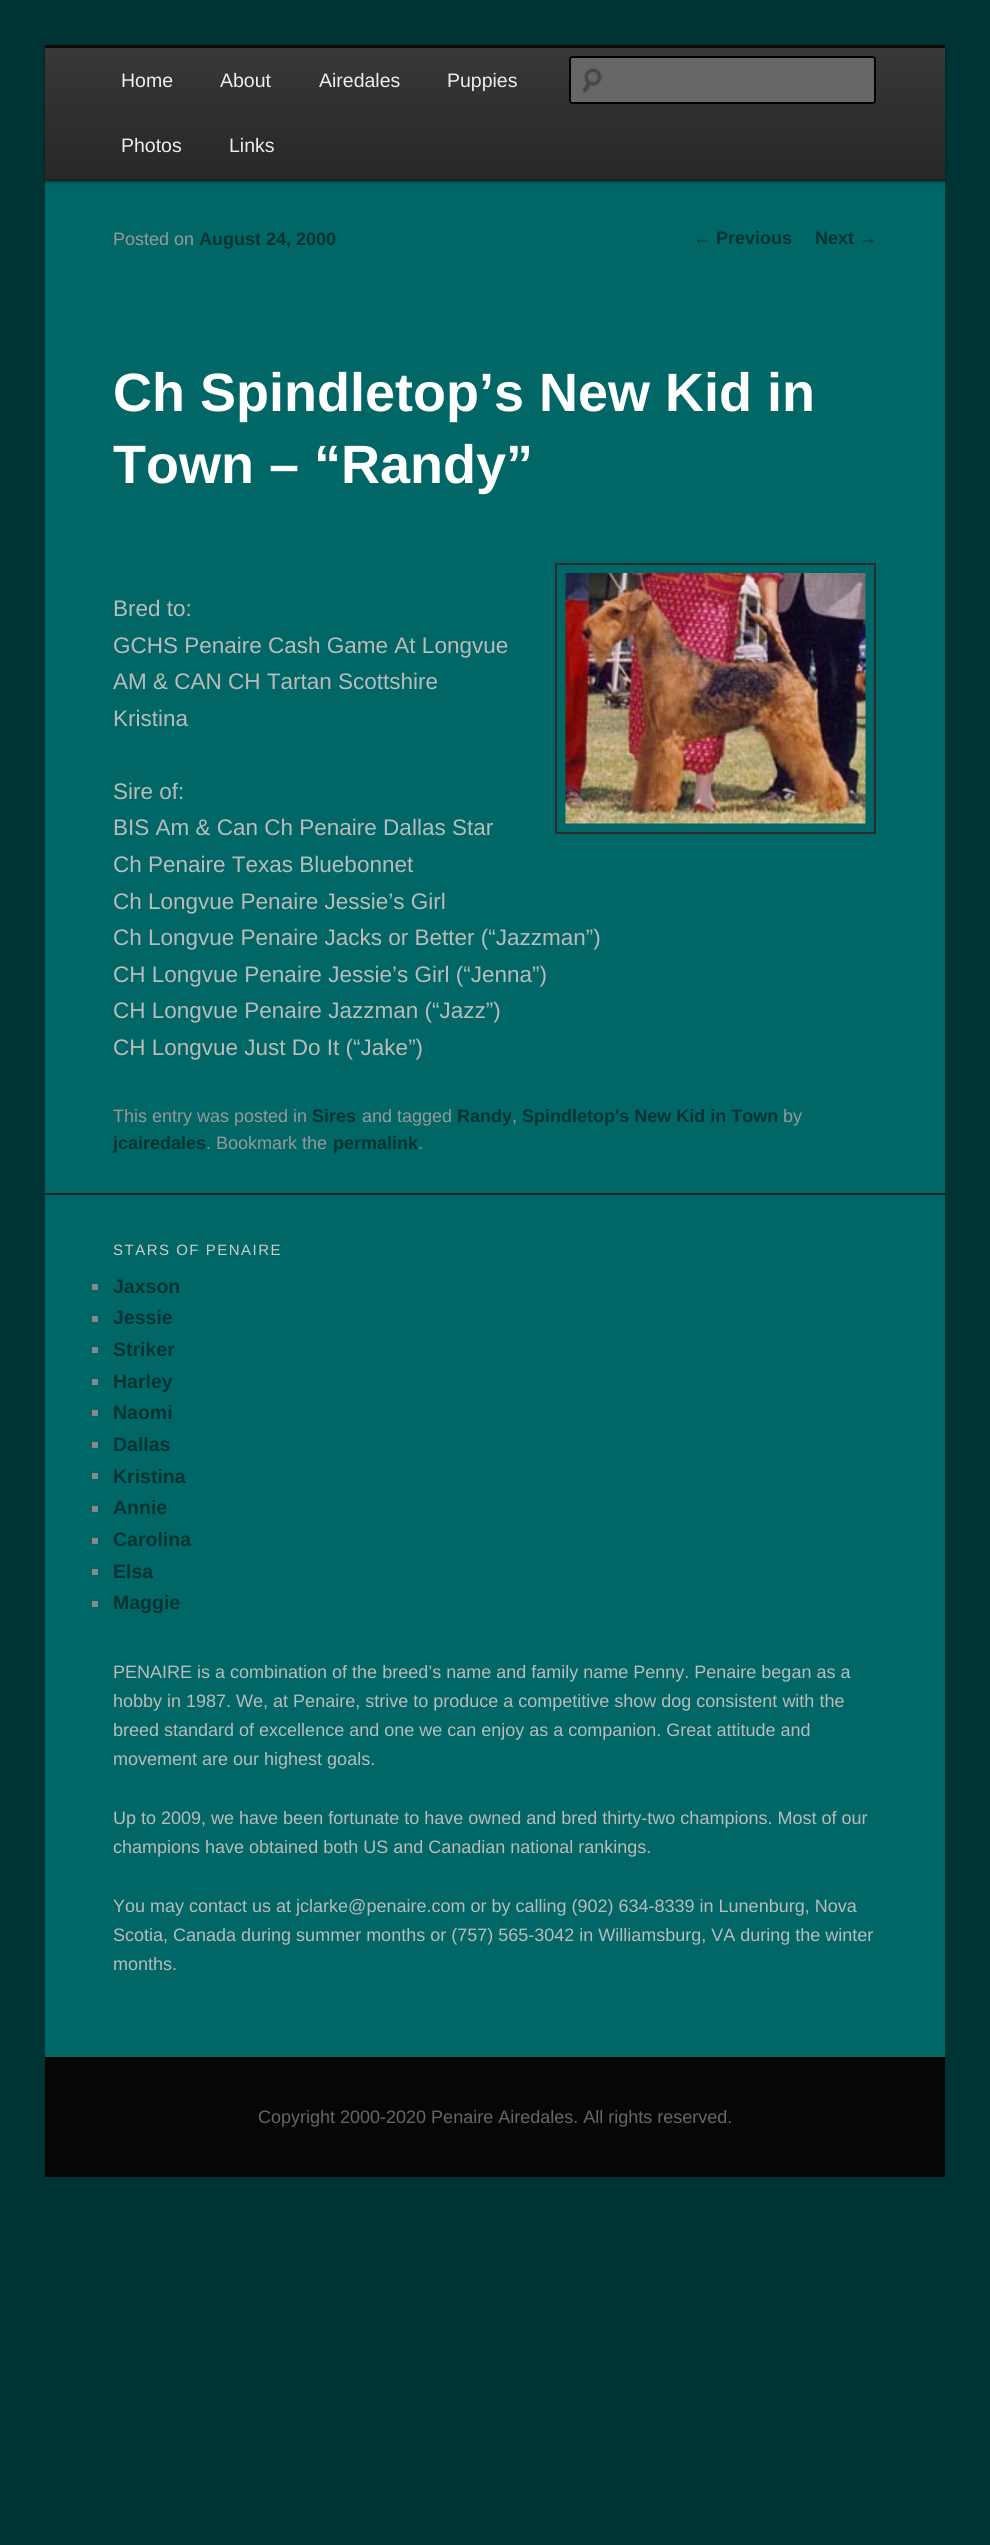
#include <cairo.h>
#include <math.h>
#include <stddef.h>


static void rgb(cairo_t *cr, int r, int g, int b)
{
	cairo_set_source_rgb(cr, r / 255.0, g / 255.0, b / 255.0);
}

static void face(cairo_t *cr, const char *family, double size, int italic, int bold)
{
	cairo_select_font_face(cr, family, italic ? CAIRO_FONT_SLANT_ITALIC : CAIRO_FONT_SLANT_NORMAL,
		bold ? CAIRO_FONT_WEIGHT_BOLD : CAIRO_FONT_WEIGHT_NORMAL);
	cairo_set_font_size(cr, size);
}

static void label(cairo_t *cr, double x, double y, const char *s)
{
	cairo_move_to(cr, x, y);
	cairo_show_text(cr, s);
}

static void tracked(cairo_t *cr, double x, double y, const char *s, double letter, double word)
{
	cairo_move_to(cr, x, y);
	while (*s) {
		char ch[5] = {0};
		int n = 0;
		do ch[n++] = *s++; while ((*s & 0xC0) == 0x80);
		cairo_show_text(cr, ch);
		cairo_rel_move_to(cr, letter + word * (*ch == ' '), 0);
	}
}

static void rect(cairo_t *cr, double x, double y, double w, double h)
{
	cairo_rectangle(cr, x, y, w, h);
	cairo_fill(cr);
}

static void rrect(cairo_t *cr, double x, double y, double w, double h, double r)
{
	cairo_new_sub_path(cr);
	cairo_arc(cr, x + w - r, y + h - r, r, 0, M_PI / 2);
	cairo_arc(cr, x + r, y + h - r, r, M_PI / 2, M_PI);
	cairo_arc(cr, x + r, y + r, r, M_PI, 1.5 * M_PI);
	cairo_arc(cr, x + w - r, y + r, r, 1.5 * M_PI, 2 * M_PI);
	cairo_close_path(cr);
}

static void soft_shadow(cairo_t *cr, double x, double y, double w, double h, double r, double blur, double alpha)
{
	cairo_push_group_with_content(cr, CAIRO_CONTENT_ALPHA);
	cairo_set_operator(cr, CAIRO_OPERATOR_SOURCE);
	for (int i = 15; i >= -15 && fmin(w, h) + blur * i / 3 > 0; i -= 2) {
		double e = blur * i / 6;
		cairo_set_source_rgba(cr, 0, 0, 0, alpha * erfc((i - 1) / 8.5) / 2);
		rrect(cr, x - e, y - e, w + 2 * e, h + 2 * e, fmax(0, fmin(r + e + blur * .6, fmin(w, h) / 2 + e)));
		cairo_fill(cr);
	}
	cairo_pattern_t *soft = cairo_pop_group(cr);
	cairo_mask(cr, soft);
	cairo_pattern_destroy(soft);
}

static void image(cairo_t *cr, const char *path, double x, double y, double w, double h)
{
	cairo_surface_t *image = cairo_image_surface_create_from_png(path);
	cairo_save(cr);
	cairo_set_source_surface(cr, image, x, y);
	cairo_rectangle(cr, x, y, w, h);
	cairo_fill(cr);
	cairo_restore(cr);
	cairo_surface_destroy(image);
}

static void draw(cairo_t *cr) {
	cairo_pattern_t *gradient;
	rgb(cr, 0, 51, 51);
	cairo_paint(cr);
	rgb(cr, 0, 102, 102);
	rect(cr, 45, 181, 900, 1876);
	rgb(cr, 10, 10, 10);
	rect(cr, 45, 45, 900, 3);
	rgb(cr, 0, 0, 0);
	soft_shadow(cr, 45, 50, 900, 132, 0, 1.5, 0.4);
	gradient = cairo_pattern_create_linear(495, 48, 495, 179);
	cairo_pattern_add_color_stop_rgba(gradient, 0, 0.22, 0.22, 0.22, 1);
	cairo_pattern_add_color_stop_rgba(gradient, 1, 0.153, 0.153, 0.153, 1);
	cairo_set_source(cr, gradient);
	cairo_pattern_destroy(gradient);
	rect(cr, 45, 48, 900, 131);
	rgb(cr, 34, 34, 34);
	rect(cr, 45, 179, 900, 2);
	face(cr, "Liberation Sans", 19.5, 0, 0);
	rgb(cr, 238, 238, 238);
	label(cr, 121, 87, "Home");
	label(cr, 220, 87, "About");
	label(cr, 319, 87, "Airedales");
	label(cr, 447, 87, "Puppies");
	label(cr, 121, 152, "Photos");
	label(cr, 229, 152, "Links");
	rgb(cr, 102, 102, 102);
	rrect(cr, 569, 56, 307, 48, 3);
	cairo_fill(cr);
	image(cr, "image0.png", 582, 68, 20, 25);
	rrect(cr, 570, 57, 305, 46, 2);
	rgb(cr, 0, 0, 0);
	cairo_stroke(cr);
	face(cr, "Liberation Sans", 18, 0, 0);
	rgb(cr, 0, 51, 51);
	label(cr, 693, 244, "←");
	face(cr, "Liberation Sans", 18, 0, 1);
	label(cr, 716, 244, "Previous");
	label(cr, 815, 244, "Next");
	face(cr, "Liberation Sans", 18, 0, 0);
	label(cr, 859, 244, "→");
	rgb(cr, 153, 153, 153);
	label(cr, 113, 245, "Posted on");
	face(cr, "Liberation Sans", 18, 0, 1);
	rgb(cr, 0, 51, 51);
	label(cr, 199, 245, "August 24, 2000");
	face(cr, "Liberation Sans", 54, 0, 1);
	rgb(cr, 255, 255, 255);
	label(cr, 113, 411, "Ch Spindletop’s New Kid in");
	label(cr, 113, 483, "Town – “Randy”");
	face(cr, "Liberation Sans", 22.5, 0, 0);
	rgb(cr, 187, 187, 187);
	label(cr, 113, 616, "Bred to:");
	label(cr, 113, 653, "GCHS Penaire Cash Game At Longvue");
	label(cr, 113, 689, "AM & CAN CH Tartan Scottshire");
	label(cr, 113, 726, "Kristina");
	cairo_rectangle(cr, 556, 564, 319, 269);
	rgb(cr, 44, 44, 44);
	cairo_stroke(cr);
	image(cr, "image1.png", 565, 573, 301, 251);
	rgb(cr, 187, 187, 187);
	label(cr, 113, 799, "Sire of:");
	label(cr, 113, 835, "BIS Am & Can Ch Penaire Dallas Star");
	label(cr, 113, 872, "Ch Penaire Texas Bluebonnet");
	label(cr, 113, 909, "Ch Longvue Penaire Jessie’s Girl");
	label(cr, 113, 945, "Ch Longvue Penaire Jacks or Better (“Jazzman”)");
	label(cr, 113, 982, "CH Longvue Penaire Jessie’s Girl (“Jenna”)");
	label(cr, 113, 1018, "CH Longvue Penaire Jazzman (“Jazz”)");
	label(cr, 113, 1055, "CH Longvue Just Do It (“Jake”)");
	face(cr, "Liberation Sans", 18, 0, 0);
	rgb(cr, 153, 153, 153);
	label(cr, 113, 1122, "This entry was posted in");
	face(cr, "Liberation Sans", 18, 0, 1);
	rgb(cr, 0, 51, 51);
	label(cr, 312, 1122, "Sires");
	face(cr, "Liberation Sans", 18, 0, 0);
	rgb(cr, 153, 153, 153);
	label(cr, 362, 1122, "and tagged");
	face(cr, "Liberation Sans", 18, 0, 1);
	rgb(cr, 0, 51, 51);
	label(cr, 457, 1122, "Randy");
	face(cr, "Liberation Sans", 18, 0, 0);
	rgb(cr, 153, 153, 153);
	label(cr, 512, 1122, ",");
	face(cr, "Liberation Sans", 18, 0, 1);
	rgb(cr, 0, 51, 51);
	label(cr, 522, 1122, "Spindletop's New Kid in Town");
	face(cr, "Liberation Sans", 18, 0, 0);
	rgb(cr, 153, 153, 153);
	label(cr, 783, 1122, "by");
	face(cr, "Liberation Sans", 18, 0, 1);
	rgb(cr, 0, 51, 51);
	label(cr, 113, 1149, "jcairedales");
	face(cr, "Liberation Sans", 18, 0, 0);
	rgb(cr, 153, 153, 153);
	label(cr, 206, 1149, ". Bookmark the");
	face(cr, "Liberation Sans", 18, 0, 1);
	rgb(cr, 0, 51, 51);
	label(cr, 333, 1149, "permalink");
	face(cr, "Liberation Sans", 18, 0, 0);
	rgb(cr, 153, 153, 153);
	label(cr, 418, 1149, ".");
	rgb(cr, 34, 34, 34);
	rect(cr, 45, 1193, 900, 2);
	face(cr, "Liberation Sans", 15, 0, 0);
	rgb(cr, 204, 204, 204);
	tracked(cr, 113, 1255, "STARS OF PENAIRE", 1.5, 0);
	rgb(cr, 136, 136, 136);
	rect(cr, 92, 1284, 6, 6);
	face(cr, "Liberation Sans", 19.5, 0, 1);
	rgb(cr, 0, 51, 51);
	label(cr, 113, 1293, "Jaxson");
	rgb(cr, 136, 136, 136);
	rect(cr, 92, 1316, 6, 6);
	rgb(cr, 0, 51, 51);
	label(cr, 113, 1324, "Jessie");
	rgb(cr, 136, 136, 136);
	rect(cr, 92, 1347, 6, 6);
	rgb(cr, 0, 51, 51);
	label(cr, 113, 1356, "Striker");
	rgb(cr, 136, 136, 136);
	rect(cr, 92, 1379, 6, 6);
	rgb(cr, 0, 51, 51);
	label(cr, 113, 1388, "Harley");
	rgb(cr, 136, 136, 136);
	rect(cr, 92, 1410, 6, 6);
	rgb(cr, 0, 51, 51);
	label(cr, 113, 1419, "Naomi");
	rgb(cr, 136, 136, 136);
	rect(cr, 92, 1442, 6, 6);
	rgb(cr, 0, 51, 51);
	label(cr, 113, 1451, "Dallas");
	rgb(cr, 136, 136, 136);
	rect(cr, 92, 1473, 6, 6);
	rgb(cr, 0, 51, 51);
	label(cr, 113, 1483, "Kristina");
	rgb(cr, 136, 136, 136);
	rect(cr, 92, 1506, 6, 6);
	rgb(cr, 0, 51, 51);
	label(cr, 113, 1514, "Annie");
	rgb(cr, 136, 136, 136);
	rect(cr, 92, 1538, 6, 6);
	rgb(cr, 0, 51, 51);
	label(cr, 113, 1546, "Carolina");
	rgb(cr, 136, 136, 136);
	rect(cr, 92, 1569, 6, 6);
	rgb(cr, 0, 51, 51);
	label(cr, 113, 1578, "Elsa");
	rgb(cr, 136, 136, 136);
	rect(cr, 92, 1601, 6, 6);
	rgb(cr, 0, 51, 51);
	label(cr, 113, 1609, "Maggie");
	face(cr, "Liberation Sans", 18, 0, 0);
	rgb(cr, 187, 187, 187);
	label(cr, 113, 1678, "PENAIRE is a combination of the breed’s name and family name Penny. Penaire began as a");
	label(cr, 113, 1707, "hobby in 1987. We, at Penaire, strive to produce a competitive show dog consistent with the");
	label(cr, 113, 1736, "breed standard of excellence and one we can enjoy as a companion. Great attitude and");
	label(cr, 113, 1765, "movement are our highest goals.");
	label(cr, 113, 1824, "Up to 2009, we have been fortunate to have owned and bred thirty-two champions. Most of our");
	label(cr, 113, 1853, "champions have obtained both US and Canadian national rankings.");
	label(cr, 113, 1912, "You may contact us at jclarke@penaire.com or by calling (902) 634-8339 in Lunenburg, Nova");
	label(cr, 113, 1941, "Scotia, Canada during summer months or (757) 565-3042 in Williamsburg, VA during the winter");
	label(cr, 113, 1970, "months.");
	rgb(cr, 6, 6, 6);
	rect(cr, 45, 2059, 900, 118);
	rgb(cr, 0, 0, 0);
	rect(cr, 45, 2057, 900, 2);
	rgb(cr, 102, 102, 102);
	label(cr, 258, 2123, "Copyright 2000-2020 Penaire Airedales. All rights reserved.");
}

int main(void) {
	cairo_surface_t *surface = cairo_image_surface_create(CAIRO_FORMAT_RGB24, 990, 2545);
	cairo_t *cr = cairo_create(surface);
	cairo_font_options_t *options = cairo_font_options_create();
	cairo_font_options_set_hint_metrics(options, CAIRO_HINT_METRICS_OFF);
	cairo_font_options_set_hint_style(options, CAIRO_HINT_STYLE_NONE);
	cairo_set_font_options(cr, options);
	cairo_set_miter_limit(cr, 4);
	draw(cr);
	cairo_surface_write_to_png(surface, "render.png");
	cairo_font_options_destroy(options);
	cairo_destroy(cr);
	cairo_surface_destroy(surface);
	return 0;
}
